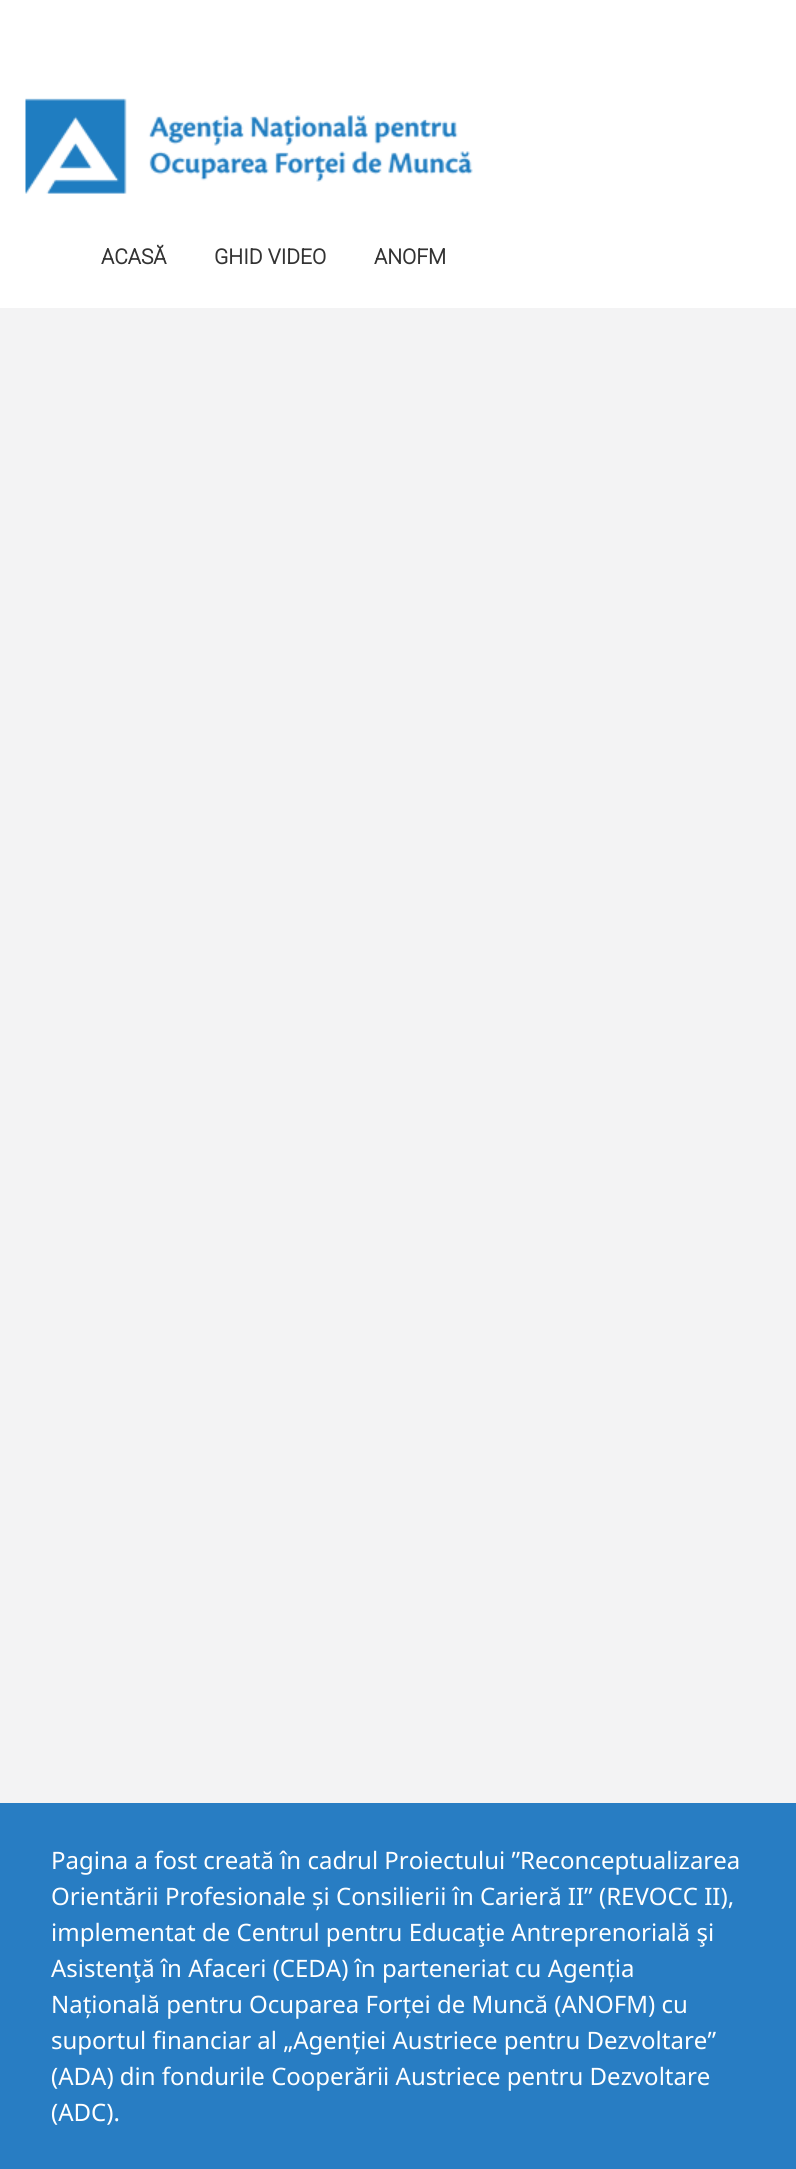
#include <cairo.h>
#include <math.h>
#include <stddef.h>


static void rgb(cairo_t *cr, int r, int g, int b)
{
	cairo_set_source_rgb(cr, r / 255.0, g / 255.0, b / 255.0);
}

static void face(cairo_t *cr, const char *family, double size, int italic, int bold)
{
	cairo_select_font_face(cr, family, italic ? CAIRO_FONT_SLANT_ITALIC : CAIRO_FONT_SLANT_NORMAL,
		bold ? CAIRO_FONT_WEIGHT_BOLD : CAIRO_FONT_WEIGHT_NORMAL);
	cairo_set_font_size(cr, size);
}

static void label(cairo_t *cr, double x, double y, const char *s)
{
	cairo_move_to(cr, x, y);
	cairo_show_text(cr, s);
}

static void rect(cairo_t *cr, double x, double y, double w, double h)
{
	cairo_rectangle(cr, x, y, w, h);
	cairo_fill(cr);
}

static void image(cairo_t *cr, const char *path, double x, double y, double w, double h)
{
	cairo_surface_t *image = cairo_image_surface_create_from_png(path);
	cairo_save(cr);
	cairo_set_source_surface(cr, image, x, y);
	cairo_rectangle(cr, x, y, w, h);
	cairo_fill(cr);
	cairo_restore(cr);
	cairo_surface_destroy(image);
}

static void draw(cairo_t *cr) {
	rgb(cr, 243, 243, 244);
	cairo_paint(cr);
	rgb(cr, 255, 255, 255);
	rect(cr, 0, 0, 796, 308);
	image(cr, "image0.png", 25, 98, 448, 96);
	face(cr, "Roboto", 21, 0, 1);
	rgb(cr, 51, 51, 51);
	label(cr, 101, 264, "ACASĂ");
	label(cr, 214, 264, "GHID VIDEO");
	label(cr, 374, 264, "ANOFM");
	rgb(cr, 40, 125, 195);
	rect(cr, 0, 1803, 796, 366);
	face(cr, "Noto Sans", 24, 0, 0);
	rgb(cr, 255, 255, 255);
	label(cr, 51, 1869, "Pagina a fost creată în cadrul Proiectului ”Reconceptualizarea");
	label(cr, 51, 1905, "Orientării Profesionale și Consilierii în Carieră II” (REVOCC II),");
	label(cr, 51, 1941, "implementat de Centrul pentru Educaţie Antreprenorială şi");
	label(cr, 51, 1977, "Asistenţă în Afaceri (CEDA) în parteneriat cu Agenția");
	label(cr, 51, 2013, "Națională pentru Ocuparea Forței de Muncă (ANOFM) cu");
	label(cr, 51, 2049, "suportul financiar al „Agenției Austriece pentru Dezvoltare”");
	label(cr, 51, 2085, "(ADA) din fondurile Cooperării Austriece pentru Dezvoltare");
	label(cr, 51, 2121, "(ADC).");
}

int main(void) {
	cairo_surface_t *surface = cairo_image_surface_create(CAIRO_FORMAT_RGB24, 796, 2169);
	cairo_t *cr = cairo_create(surface);
	cairo_font_options_t *options = cairo_font_options_create();
	cairo_font_options_set_hint_metrics(options, CAIRO_HINT_METRICS_OFF);
	cairo_font_options_set_hint_style(options, CAIRO_HINT_STYLE_NONE);
	cairo_set_font_options(cr, options);
	cairo_set_miter_limit(cr, 4);
	draw(cr);
	cairo_surface_write_to_png(surface, "render.png");
	cairo_font_options_destroy(options);
	cairo_destroy(cr);
	cairo_surface_destroy(surface);
	return 0;
}
